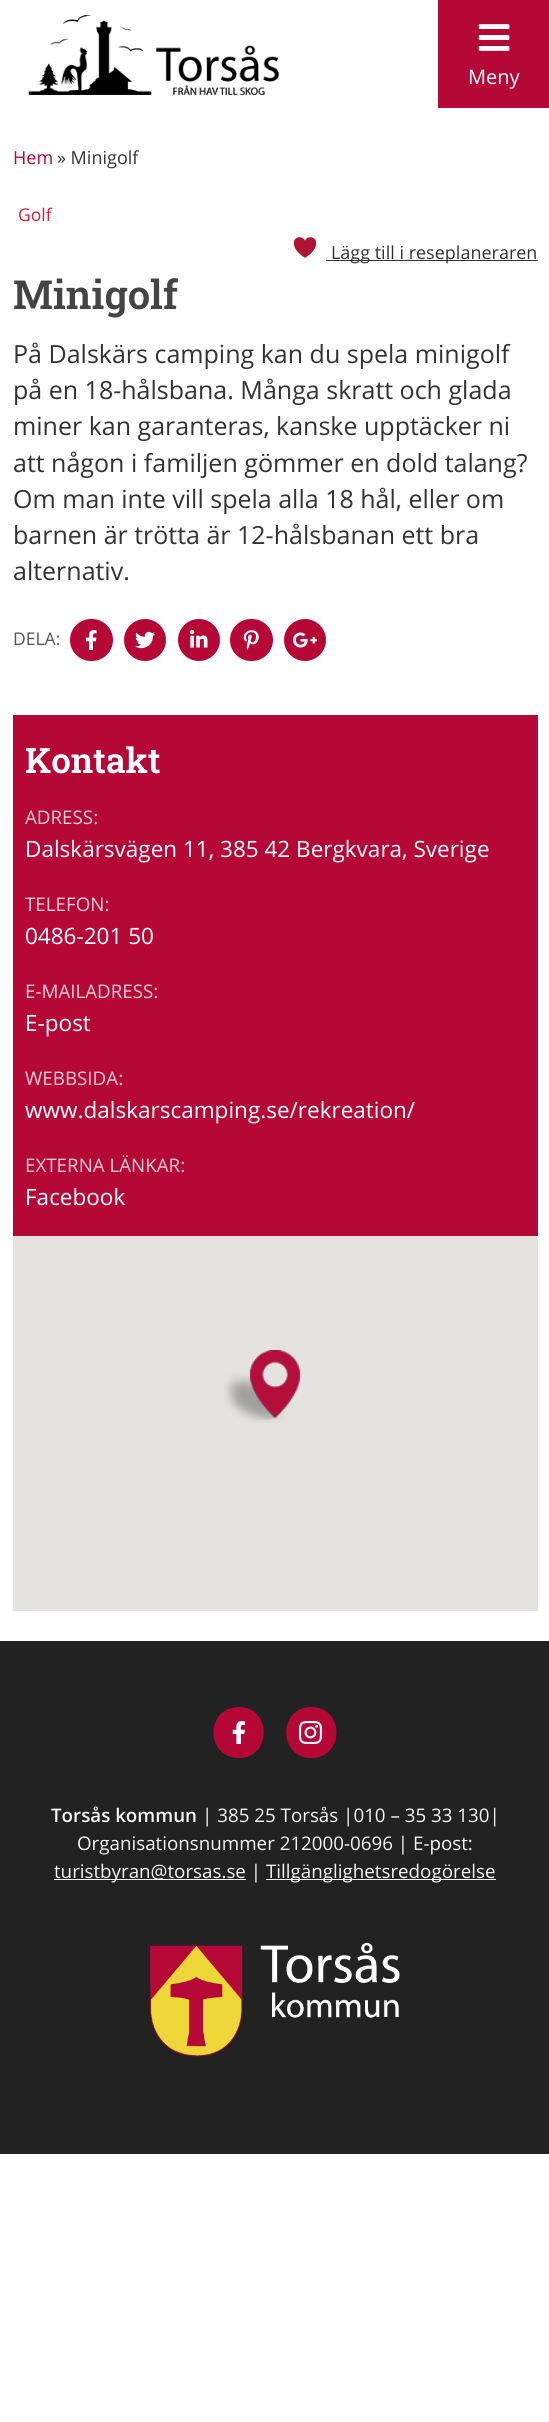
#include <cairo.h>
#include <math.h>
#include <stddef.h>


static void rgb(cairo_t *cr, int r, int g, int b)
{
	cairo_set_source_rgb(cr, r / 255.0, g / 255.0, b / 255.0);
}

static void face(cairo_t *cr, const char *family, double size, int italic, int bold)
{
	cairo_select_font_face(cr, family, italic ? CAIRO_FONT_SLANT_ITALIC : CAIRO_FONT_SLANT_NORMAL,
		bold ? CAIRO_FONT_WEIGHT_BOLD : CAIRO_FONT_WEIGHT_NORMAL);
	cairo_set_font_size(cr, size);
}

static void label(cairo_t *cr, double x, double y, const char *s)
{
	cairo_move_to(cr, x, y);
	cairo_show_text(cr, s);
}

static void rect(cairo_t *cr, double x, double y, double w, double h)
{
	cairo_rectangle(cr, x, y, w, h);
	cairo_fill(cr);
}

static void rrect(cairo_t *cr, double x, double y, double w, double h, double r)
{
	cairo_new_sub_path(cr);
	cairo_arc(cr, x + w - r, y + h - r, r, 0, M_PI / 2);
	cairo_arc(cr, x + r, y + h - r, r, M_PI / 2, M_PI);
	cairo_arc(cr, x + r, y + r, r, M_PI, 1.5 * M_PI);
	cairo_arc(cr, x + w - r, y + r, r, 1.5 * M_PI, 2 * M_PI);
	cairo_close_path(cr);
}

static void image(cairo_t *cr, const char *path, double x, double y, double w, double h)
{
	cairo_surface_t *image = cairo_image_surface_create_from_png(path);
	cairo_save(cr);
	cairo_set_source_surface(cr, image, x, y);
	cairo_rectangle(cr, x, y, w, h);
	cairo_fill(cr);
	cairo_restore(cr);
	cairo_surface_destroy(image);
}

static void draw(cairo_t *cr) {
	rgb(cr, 255, 255, 255);
	cairo_paint(cr);
	image(cr, "image0.png", 28, 15, 251, 80);
	rgb(cr, 182, 8, 55);
	rect(cr, 438, 0, 111, 108);
	image(cr, "image1.png", 478, 24, 32, 27);
	face(cr, "Open Sans", 20, 0, 0);
	rgb(cr, 255, 255, 255);
	label(cr, 468, 84, "Meny");
	face(cr, "Open Sans", 18, 0, 0);
	rgb(cr, 182, 8, 55);
	label(cr, 13, 164, "Hem");
	rgb(cr, 51, 51, 51);
	label(cr, 57, 164, "» Minigolf");
	face(cr, "Open Sans", 17.5, 0, 0);
	rgb(cr, 227, 24, 55);
	label(cr, 18, 221, "Golf");
	image(cr, "image2.png", 294, 237, 22, 21);
	rgb(cr, 51, 51, 51);
	rect(cr, 326, 260, 212, 1);
	face(cr, "Open Sans", 18, 0, 0);
	label(cr, 331, 259, "Lägg till i reseplaneraren");
	face(cr, "Roboto Slab SemiBold", 40, 0, 0);
	rgb(cr, 68, 68, 68);
	label(cr, 13, 309, "Minigolf");
	face(cr, "Open Sans", 25, 0, 0);
	rgb(cr, 51, 51, 51);
	label(cr, 13, 363, "På Dalskärs camping kan du spela minigolf");
	label(cr, 13, 399, "på en 18-hålsbana. Många skratt och glada");
	label(cr, 13, 435, "miner kan garanteras, kanske upptäcker ni");
	label(cr, 13, 472, "att någon i familjen gömmer en dold talang?");
	label(cr, 13, 508, "Om man inte vill spela alla 18 hål, eller om");
	label(cr, 13, 544, "barnen är trötta är 12-hålsbanan ett bra");
	label(cr, 13, 580, "alternativ.");
	face(cr, "Open Sans", 17.5, 0, 0);
	rgb(cr, 85, 85, 85);
	label(cr, 13, 645, "DELA:");
	rgb(cr, 182, 8, 55);
	rrect(cr, 70, 619, 43, 42, 21);
	cairo_fill(cr);
	image(cr, "image3.png", 85, 630, 12, 20);
	cairo_arc(cr, 145, 640, 21, 0, 2 * M_PI);
	cairo_fill(cr);
	image(cr, "image4.png", 135, 631, 20, 18);
	cairo_arc(cr, 199, 640, 21, 0, 2 * M_PI);
	cairo_fill(cr);
	image(cr, "image5.png", 190, 630, 18, 18);
	rrect(cr, 230, 619, 43, 42, 21);
	cairo_fill(cr);
	image(cr, "image6.png", 243, 630, 16, 20);
	cairo_arc(cr, 305, 640, 21, 0, 2 * M_PI);
	cairo_fill(cr);
	image(cr, "image7.png", 293, 632, 24, 16);
	rect(cr, 13, 715, 525, 521);
	face(cr, "Roboto Slab SemiBold", 35, 0, 0);
	rgb(cr, 255, 255, 255);
	label(cr, 25, 773, "Kontakt");
	face(cr, "Open Sans", 18.75, 0, 0);
	rgb(cr, 240, 206, 215);
	label(cr, 25, 824, "ADRESS:");
	face(cr, "Open Sans", 22.5, 0, 0);
	rgb(cr, 255, 255, 255);
	label(cr, 25, 857, "Dalskärsvägen 11, 385 42 Bergkvara, Sverige");
	face(cr, "Open Sans", 18.75, 0, 0);
	rgb(cr, 240, 206, 215);
	label(cr, 25, 911, "TELEFON:");
	face(cr, "Open Sans", 22.5, 0, 0);
	rgb(cr, 255, 255, 255);
	label(cr, 25, 944, "0486-201 50");
	face(cr, "Open Sans", 18.75, 0, 0);
	rgb(cr, 240, 206, 215);
	label(cr, 25, 998, "E-MAILADRESS:");
	face(cr, "Open Sans", 22.5, 0, 0);
	rgb(cr, 255, 255, 255);
	label(cr, 25, 1031, "E-post");
	face(cr, "Open Sans", 18.75, 0, 0);
	rgb(cr, 240, 206, 215);
	label(cr, 25, 1085, "WEBBSIDA:");
	face(cr, "Open Sans", 22.5, 0, 0);
	rgb(cr, 255, 255, 255);
	label(cr, 25, 1118, "www.dalskarscamping.se/rekreation/");
	face(cr, "Open Sans", 18.75, 0, 0);
	rgb(cr, 240, 206, 215);
	label(cr, 25, 1172, "EXTERNA LÄNKAR:");
	face(cr, "Open Sans", 22.5, 0, 0);
	rgb(cr, 255, 255, 255);
	label(cr, 25, 1205, "Facebook");
	rgb(cr, 229, 227, 223);
	rect(cr, 13, 1236, 525, 375);
	image(cr, "image8.png", 224, 1350, 77, 73);
	rgb(cr, 34, 34, 34);
	rect(cr, 0, 1641, 549, 513);
	rgb(cr, 182, 8, 55);
	cairo_new_path(cr);
	cairo_move_to(cr, 239, 1707);
	cairo_curve_to(cr, 205, 1707, 205, 1758, 239, 1758);
	cairo_curve_to(cr, 272, 1758, 272, 1707, 239, 1707);
	cairo_close_path(cr);
	cairo_fill(cr);
	image(cr, "image9.png", 232, 1721, 14, 23);
	cairo_new_path(cr);
	cairo_move_to(cr, 311, 1707);
	cairo_curve_to(cr, 278, 1707, 278, 1758, 311, 1758);
	cairo_curve_to(cr, 345, 1758, 345, 1707, 311, 1707);
	cairo_close_path(cr);
	cairo_fill(cr);
	image(cr, "image10.png", 299, 1721, 23, 23);
	face(cr, "Open Sans SemiBold", 18.75, 0, 0);
	rgb(cr, 245, 245, 245);
	label(cr, 51, 1822, "Torsås kommun");
	face(cr, "Open Sans", 18.75, 0, 0);
	label(cr, 202, 1822, "| 385 25 Torsås |010 – 35 33 130|");
	label(cr, 77, 1850, "Organisationsnummer 212000-0696 | E-post:");
	rect(cr, 54, 1879, 192, 1);
	label(cr, 54, 1878, "turistbyran@torsas.se |");
	rect(cr, 266, 1879, 230, 1);
	label(cr, 266, 1878, "Tillgänglighetsredogörelse");
	image(cr, "image11.png", 150, 1942, 250, 115);
}

int main(void) {
	cairo_surface_t *surface = cairo_image_surface_create(CAIRO_FORMAT_RGB24, 549, 2422);
	cairo_t *cr = cairo_create(surface);
	cairo_font_options_t *options = cairo_font_options_create();
	cairo_font_options_set_hint_metrics(options, CAIRO_HINT_METRICS_OFF);
	cairo_font_options_set_hint_style(options, CAIRO_HINT_STYLE_NONE);
	cairo_set_font_options(cr, options);
	cairo_set_miter_limit(cr, 4);
	draw(cr);
	cairo_surface_write_to_png(surface, "render.png");
	cairo_font_options_destroy(options);
	cairo_destroy(cr);
	cairo_surface_destroy(surface);
	return 0;
}
